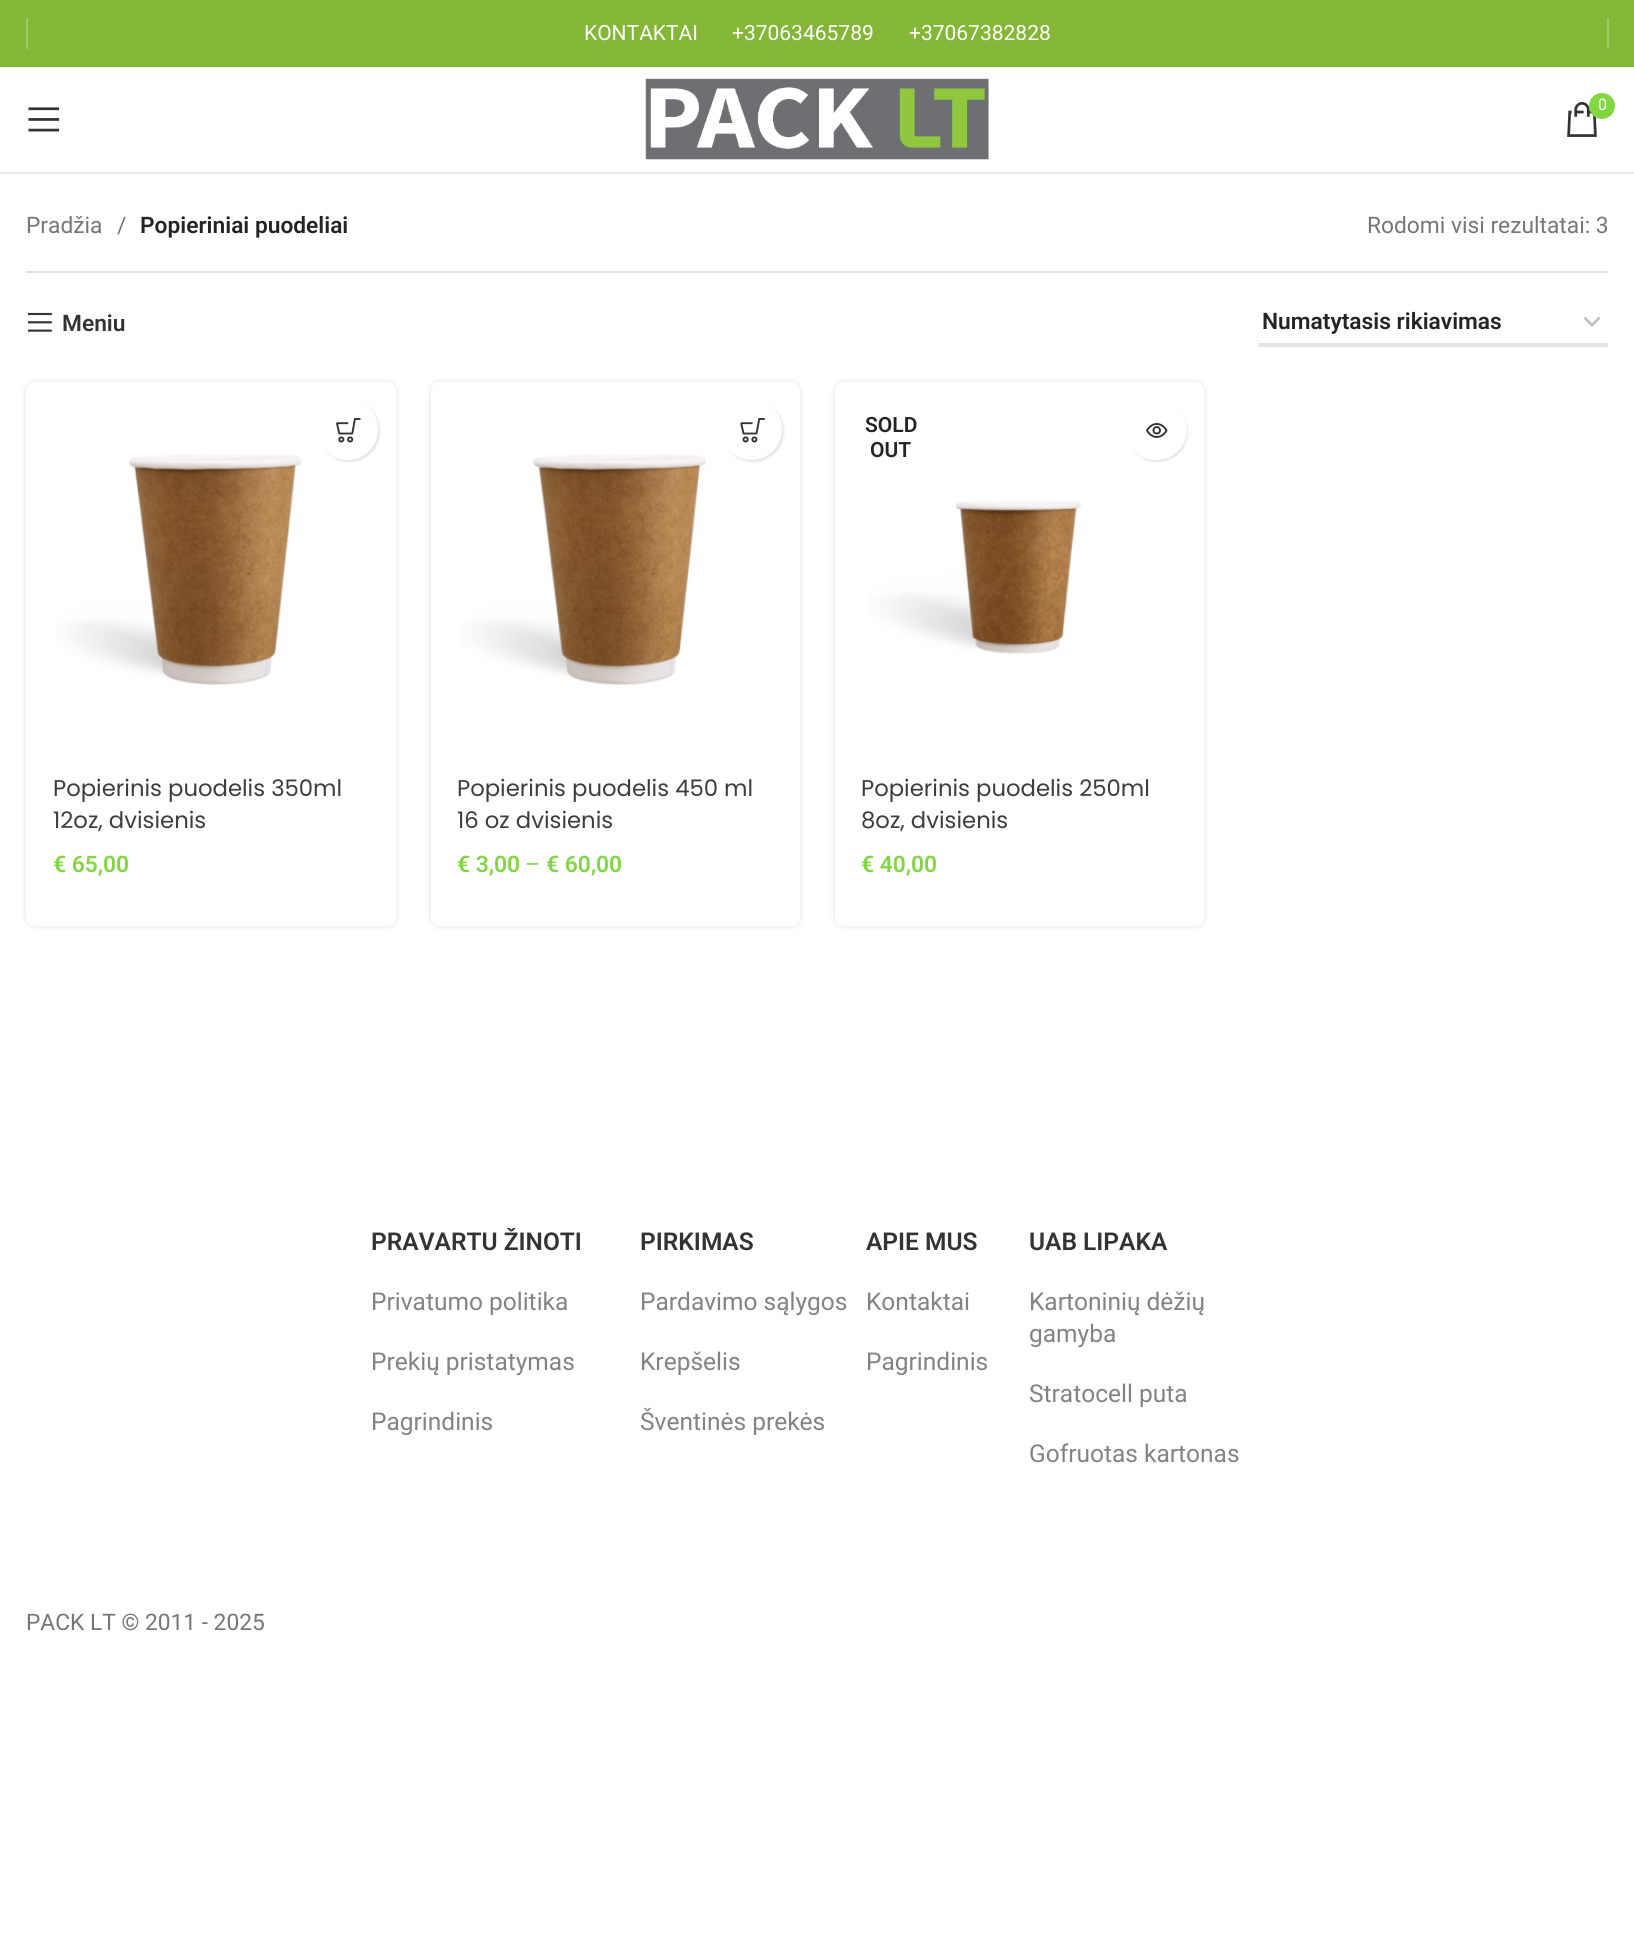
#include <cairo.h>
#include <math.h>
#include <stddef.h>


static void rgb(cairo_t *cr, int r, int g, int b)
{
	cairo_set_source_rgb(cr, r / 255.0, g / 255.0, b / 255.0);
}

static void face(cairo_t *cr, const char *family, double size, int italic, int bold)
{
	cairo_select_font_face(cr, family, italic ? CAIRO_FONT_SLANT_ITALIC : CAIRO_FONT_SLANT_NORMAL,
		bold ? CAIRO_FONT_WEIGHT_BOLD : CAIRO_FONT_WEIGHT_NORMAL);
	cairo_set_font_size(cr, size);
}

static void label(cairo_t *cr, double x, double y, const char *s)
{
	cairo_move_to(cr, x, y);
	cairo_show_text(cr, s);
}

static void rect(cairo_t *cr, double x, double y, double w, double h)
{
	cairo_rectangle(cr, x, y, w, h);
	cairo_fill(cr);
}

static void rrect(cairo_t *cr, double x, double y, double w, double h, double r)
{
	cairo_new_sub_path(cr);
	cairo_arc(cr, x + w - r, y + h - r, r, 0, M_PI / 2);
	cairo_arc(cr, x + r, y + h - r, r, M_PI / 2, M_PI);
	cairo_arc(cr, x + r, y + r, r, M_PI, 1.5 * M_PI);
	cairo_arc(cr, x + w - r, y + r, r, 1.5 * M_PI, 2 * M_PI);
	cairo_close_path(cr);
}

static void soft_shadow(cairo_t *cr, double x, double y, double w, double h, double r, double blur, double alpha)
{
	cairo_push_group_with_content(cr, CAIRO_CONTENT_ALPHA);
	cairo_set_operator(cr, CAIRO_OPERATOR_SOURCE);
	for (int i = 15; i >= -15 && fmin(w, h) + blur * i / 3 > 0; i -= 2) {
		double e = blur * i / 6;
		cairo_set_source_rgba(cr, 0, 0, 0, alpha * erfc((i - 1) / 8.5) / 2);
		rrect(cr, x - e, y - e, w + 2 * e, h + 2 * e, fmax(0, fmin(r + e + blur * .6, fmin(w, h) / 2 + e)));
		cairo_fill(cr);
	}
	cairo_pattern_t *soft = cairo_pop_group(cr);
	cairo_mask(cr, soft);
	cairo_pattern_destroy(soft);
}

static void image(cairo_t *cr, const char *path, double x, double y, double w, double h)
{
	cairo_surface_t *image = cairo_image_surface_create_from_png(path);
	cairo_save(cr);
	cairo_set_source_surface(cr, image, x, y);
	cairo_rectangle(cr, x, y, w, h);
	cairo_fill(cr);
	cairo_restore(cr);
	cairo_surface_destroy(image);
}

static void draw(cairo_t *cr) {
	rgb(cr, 255, 255, 255);
	cairo_paint(cr);
	rgb(cr, 131, 183, 53);
	rect(cr, 0, 0, 1634, 67);
	rgb(cr, 162, 201, 104);
	rect(cr, 26, 18, 2, 31);
	face(cr, "Roboto", 21, 0, 0);
	rgb(cr, 255, 255, 255);
	label(cr, 584, 40, "KONTAKTAI");
	label(cr, 732, 40, "+37063465789");
	label(cr, 909, 40, "+37067382828");
	rgb(cr, 162, 201, 104);
	rect(cr, 1607, 18, 2, 31);
	rgb(cr, 232, 232, 232);
	rect(cr, 0, 172, 1634, 2);
	image(cr, "image0.png", 645, 78, 344, 82);
	image(cr, "image1.png", 1567, 102, 30, 35);
	rgb(cr, 129, 215, 66);
	cairo_arc(cr, 1602, 106, 13, 0, 2 * M_PI);
	cairo_fill(cr);
	face(cr, "Roboto", 16, 0, 0);
	rgb(cr, 255, 255, 255);
	label(cr, 1598, 110, "0");
	image(cr, "image2.png", 28, 107, 32, 25);
	rgb(cr, 228, 228, 228);
	rect(cr, 26, 271, 1582, 2);
	face(cr, "Roboto", 22.75, 0, 0);
	rgb(cr, 118, 118, 118);
	label(cr, 26, 233, "Pradžia");
	label(cr, 117, 233, "/");
	face(cr, "Roboto SemiBold", 22.75, 0, 0);
	rgb(cr, 36, 36, 36);
	label(cr, 140, 233, "Popieriniai puodeliai");
	face(cr, "Roboto", 22.75, 0, 0);
	rgb(cr, 118, 118, 118);
	label(cr, 1367, 233, "Rodomi visi rezultatai: 3");
	image(cr, "image3.png", 27, 312, 25, 20);
	face(cr, "Roboto SemiBold", 22.75, 0, 0);
	rgb(cr, 51, 51, 51);
	label(cr, 62, 331, "Meniu");
	cairo_new_path(cr);
	cairo_move_to(cr, 1584.5, 317.5);
	cairo_line_to(cr, 1592, 325);
	cairo_line_to(cr, 1599.5, 317.5);
	rgb(cr, 187, 187, 187);
	cairo_set_line_width(cr, 2.5);
	cairo_stroke(cr);
	rgb(cr, 230, 230, 230);
	rect(cr, 1258, 343, 350, 4);
	rgb(cr, 36, 36, 36);
	label(cr, 1262, 329, "Numatytasis rikiavimas");
	rgb(cr, 0, 0, 0);
	soft_shadow(cr, 26, 382, 370, 544, 9, 3.5, 0.12);
	rgb(cr, 255, 255, 255);
	rrect(cr, 26, 382, 370, 544, 9);
	cairo_fill(cr);
	rgb(cr, 0, 0, 0);
	soft_shadow(cr, 319, 401, 61, 61, 30.5, 1, 0.1);
	rgb(cr, 255, 255, 255);
	cairo_arc(cr, 347.5, 429.5, 30.5, 0, 2 * M_PI);
	cairo_fill(cr);
	image(cr, "image4.png", 336, 418, 25, 25);
	image(cr, "image5.png", 55, 454, 247, 231);
	face(cr, "Poppins", 22.75, 0, 0);
	rgb(cr, 61, 61, 61);
	label(cr, 53, 796, "Popierinis puodelis 350ml");
	label(cr, 53, 828, "12oz, dvisienis");
	face(cr, "Roboto SemiBold", 22.75, 0, 0);
	rgb(cr, 129, 215, 66);
	label(cr, 53, 872, "€ 65,00");
	rgb(cr, 0, 0, 0);
	soft_shadow(cr, 431, 382, 369, 544, 9, 3.5, 0.12);
	rgb(cr, 255, 255, 255);
	rrect(cr, 431, 382, 369, 544, 9);
	cairo_fill(cr);
	rgb(cr, 0, 0, 0);
	soft_shadow(cr, 723, 401, 61, 61, 30.5, 1, 0.1);
	rgb(cr, 255, 255, 255);
	cairo_arc(cr, 751.5, 429.5, 30.5, 0, 2 * M_PI);
	cairo_fill(cr);
	image(cr, "image6.png", 740, 418, 25, 25);
	image(cr, "image7.png", 461, 454, 245, 231);
	face(cr, "Poppins", 22.75, 0, 0);
	rgb(cr, 61, 61, 61);
	label(cr, 457, 796, "Popierinis puodelis 450 ml");
	label(cr, 457, 828, "16 oz dvisienis");
	face(cr, "Roboto SemiBold", 22.75, 0, 0);
	rgb(cr, 129, 215, 66);
	label(cr, 457, 872, "€ 3,00");
	face(cr, "Roboto", 22.75, 0, 0);
	label(cr, 525, 872, "–");
	face(cr, "Roboto SemiBold", 22.75, 0, 0);
	label(cr, 546, 872, "€ 60,00");
	rgb(cr, 0, 0, 0);
	soft_shadow(cr, 835, 382, 369, 544, 9, 3.5, 0.12);
	rgb(cr, 255, 255, 255);
	rrect(cr, 835, 382, 369, 544, 9);
	cairo_fill(cr);
	face(cr, "Roboto SemiBold", 21, 0, 0);
	rgb(cr, 36, 36, 36);
	label(cr, 865, 432, "SOLD");
	label(cr, 870, 457, "OUT");
	image(cr, "image8.png", 869, 501, 212, 153);
	rgb(cr, 0, 0, 0);
	soft_shadow(cr, 1127, 401, 61, 61, 30.5, 1, 0.1);
	rgb(cr, 255, 255, 255);
	rrect(cr, 1125, 399, 62, 61, 30.5);
	cairo_fill(cr);
	image(cr, "image9.png", 1146, 423, 22, 15);
	face(cr, "Poppins", 22.75, 0, 0);
	rgb(cr, 61, 61, 61);
	label(cr, 861, 796, "Popierinis puodelis 250ml");
	label(cr, 861, 828, "8oz, dvisienis");
	face(cr, "Roboto SemiBold", 22.75, 0, 0);
	rgb(cr, 129, 215, 66);
	label(cr, 861, 872, "€ 40,00");
	face(cr, "Roboto SemiBold", 24.5, 0, 0);
	rgb(cr, 51, 51, 51);
	label(cr, 371, 1250, "PRAVARTU ŽINOTI");
	face(cr, "Roboto", 24.5, 0, 0);
	rgb(cr, 131, 131, 131);
	label(cr, 371, 1310, "Privatumo politika");
	label(cr, 371, 1370, "Prekių pristatymas");
	label(cr, 371, 1430, "Pagrindinis");
	face(cr, "Roboto SemiBold", 24.5, 0, 0);
	rgb(cr, 51, 51, 51);
	label(cr, 640, 1250, "PIRKIMAS");
	face(cr, "Roboto", 24.5, 0, 0);
	rgb(cr, 131, 131, 131);
	label(cr, 640, 1310, "Pardavimo sąlygos");
	label(cr, 640, 1370, "Krepšelis");
	label(cr, 640, 1430, "Šventinės prekės");
	face(cr, "Roboto SemiBold", 24.5, 0, 0);
	rgb(cr, 51, 51, 51);
	label(cr, 866, 1250, "APIE MUS");
	face(cr, "Roboto", 24.5, 0, 0);
	rgb(cr, 131, 131, 131);
	label(cr, 866, 1310, "Kontaktai");
	label(cr, 866, 1370, "Pagrindinis");
	face(cr, "Roboto SemiBold", 24.5, 0, 0);
	rgb(cr, 51, 51, 51);
	label(cr, 1029, 1250, "UAB LIPAKA");
	face(cr, "Roboto", 24.5, 0, 0);
	rgb(cr, 131, 131, 131);
	label(cr, 1029, 1310, "Kartoninių dėžių");
	label(cr, 1029, 1342, "gamyba");
	label(cr, 1029, 1402, "Stratocell puta");
	label(cr, 1029, 1462, "Gofruotas kartonas");
	face(cr, "Roboto", 22.75, 0, 0);
	rgb(cr, 118, 118, 118);
	label(cr, 26, 1630, "PACK LT © 2011 - 2025");
}

int main(void) {
	cairo_surface_t *surface = cairo_image_surface_create(CAIRO_FORMAT_RGB24, 1634, 1950);
	cairo_t *cr = cairo_create(surface);
	cairo_font_options_t *options = cairo_font_options_create();
	cairo_font_options_set_hint_metrics(options, CAIRO_HINT_METRICS_OFF);
	cairo_font_options_set_hint_style(options, CAIRO_HINT_STYLE_NONE);
	cairo_set_font_options(cr, options);
	cairo_set_miter_limit(cr, 4);
	draw(cr);
	cairo_surface_write_to_png(surface, "render.png");
	cairo_font_options_destroy(options);
	cairo_destroy(cr);
	cairo_surface_destroy(surface);
	return 0;
}
